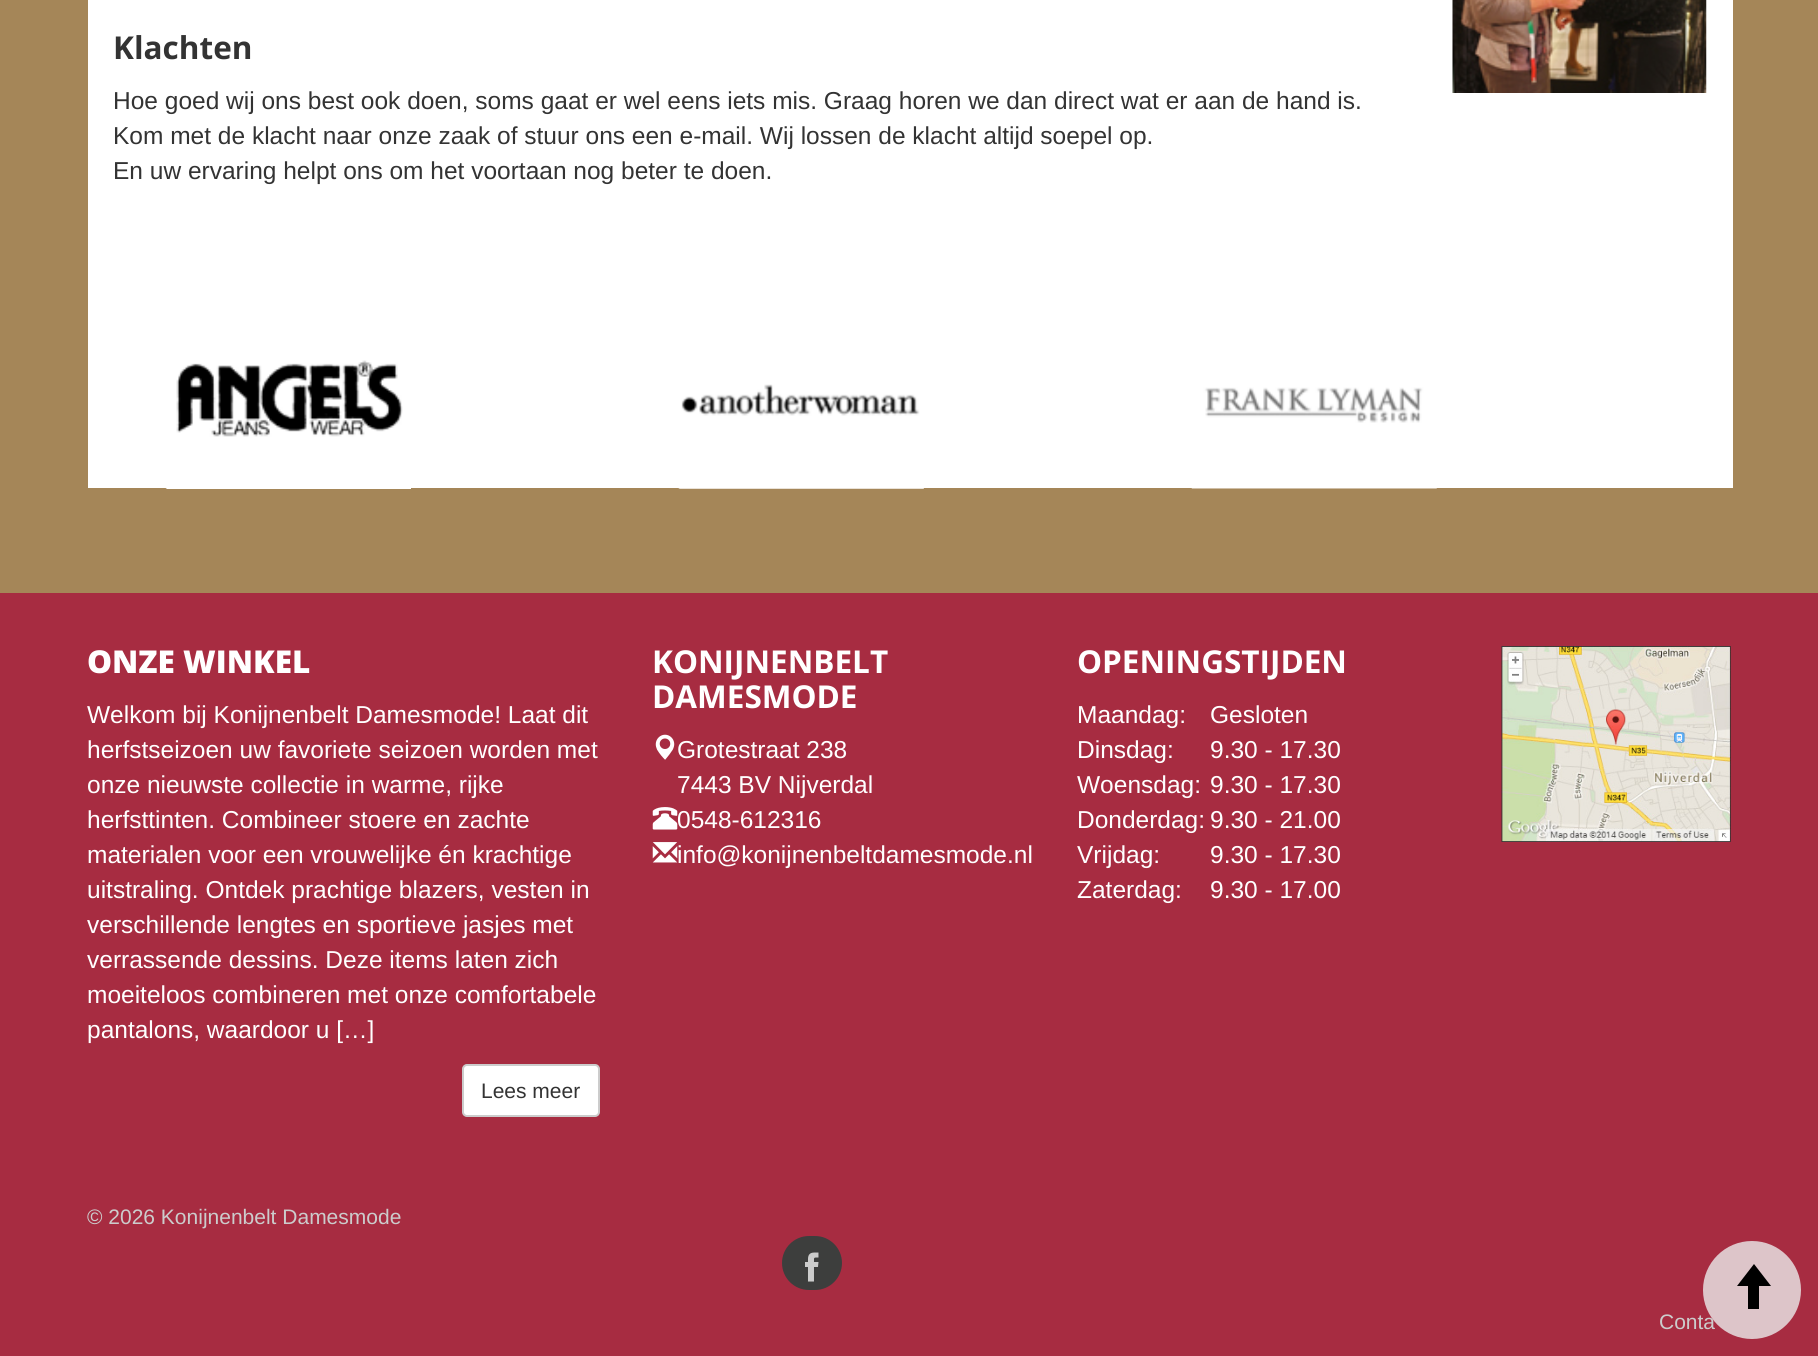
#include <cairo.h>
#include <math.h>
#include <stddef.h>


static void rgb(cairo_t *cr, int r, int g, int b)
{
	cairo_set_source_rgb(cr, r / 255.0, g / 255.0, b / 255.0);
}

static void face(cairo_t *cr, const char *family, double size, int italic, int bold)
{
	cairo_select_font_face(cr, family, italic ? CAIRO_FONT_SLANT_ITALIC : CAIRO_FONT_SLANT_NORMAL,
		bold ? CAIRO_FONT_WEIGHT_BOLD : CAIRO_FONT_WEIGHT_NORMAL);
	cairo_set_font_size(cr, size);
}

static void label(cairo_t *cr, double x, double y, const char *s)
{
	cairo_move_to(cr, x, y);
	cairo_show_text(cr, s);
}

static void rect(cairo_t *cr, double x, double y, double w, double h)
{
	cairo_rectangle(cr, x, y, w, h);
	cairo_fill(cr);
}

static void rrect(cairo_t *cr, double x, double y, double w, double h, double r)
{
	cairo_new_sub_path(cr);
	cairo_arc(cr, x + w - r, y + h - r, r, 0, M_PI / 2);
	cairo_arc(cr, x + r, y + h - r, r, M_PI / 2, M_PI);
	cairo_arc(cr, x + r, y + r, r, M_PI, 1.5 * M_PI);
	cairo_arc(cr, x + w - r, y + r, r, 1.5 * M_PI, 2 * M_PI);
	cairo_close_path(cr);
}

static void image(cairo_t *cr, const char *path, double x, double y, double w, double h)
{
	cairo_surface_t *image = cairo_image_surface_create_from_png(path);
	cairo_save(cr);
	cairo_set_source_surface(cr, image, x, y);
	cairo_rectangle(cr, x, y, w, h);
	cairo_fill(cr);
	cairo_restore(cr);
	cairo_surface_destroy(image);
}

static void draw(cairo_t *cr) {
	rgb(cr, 165, 134, 88);
	cairo_paint(cr);
	rgb(cr, 255, 255, 255);
	rect(cr, 88, 0, 1645, 488);
	face(cr, "Open Sans", 31.5, 0, 1);
	rgb(cr, 51, 51, 51);
	label(cr, 113, 59, "Klachten");
	image(cr, "image0.png", 1452, 0, 255, 93);
	face(cr, "Liberation Sans", 24.5, 0, 0);
	label(cr, 113, 109, "Hoe goed wij ons best ook doen, soms gaat er wel eens iets mis. Graag horen we dan direct wat er aan de hand is.");
	label(cr, 113, 144, "Kom met de klacht naar onze zaak of stuur ons een e-mail. Wij lossen de klacht altijd soepel op.");
	label(cr, 113, 179, "En uw ervaring helpt ons om het voortaan nog beter te doen.");
	image(cr, "image1.png", 165, 360, 246, 129);
	image(cr, "image2.png", 678, 384, 246, 105);
	image(cr, "image3.png", 1191, 387, 246, 102);
	rgb(cr, 167, 44, 65);
	rect(cr, 0, 593, 1818, 763);
	face(cr, "Open Sans ExtraBold", 31.5, 0, 0);
	rgb(cr, 255, 255, 255);
	label(cr, 87, 673, "ONZE WINKEL");
	face(cr, "Liberation Sans", 24.5, 0, 0);
	label(cr, 87, 723, "Welkom bij Konijnenbelt Damesmode! Laat dit");
	label(cr, 87, 758, "herfstseizoen uw favoriete seizoen worden met");
	label(cr, 87, 793, "onze nieuwste collectie in warme, rijke");
	label(cr, 87, 828, "herfsttinten. Combineer stoere en zachte");
	label(cr, 87, 863, "materialen voor een vrouwelijke én krachtige");
	label(cr, 87, 898, "uitstraling. Ontdek prachtige blazers, vesten in");
	label(cr, 87, 933, "verschillende lengtes en sportieve jasjes met");
	label(cr, 87, 968, "verrassende dessins. Deze items laten zich");
	label(cr, 87, 1003, "moeiteloos combineren met onze comfortabele");
	label(cr, 87, 1038, "pantalons, waardoor u […]");
	rrect(cr, 463, 1065, 136, 51, 4);
	cairo_fill_preserve(cr);
	rgb(cr, 204, 204, 204);
	cairo_stroke(cr);
	face(cr, "Liberation Sans", 21, 0, 0);
	rgb(cr, 51, 51, 51);
	label(cr, 481, 1098, "Lees meer");
	face(cr, "Open Sans", 31.5, 0, 1);
	rgb(cr, 255, 255, 255);
	label(cr, 652, 673, "KONIJNENBELT");
	label(cr, 652, 708, "DAMESMODE");
	image(cr, "image4.png", 655, 734, 20, 26);
	face(cr, "Liberation Sans", 24.5, 0, 0);
	label(cr, 677, 758, "Grotestraat 238");
	label(cr, 677, 793, "7443 BV Nijverdal");
	label(cr, 677, 828, "0548-612316");
	image(cr, "image5.png", 652, 807, 26, 23);
	image(cr, "image6.png", 652, 842, 26, 21);
	label(cr, 677, 863, "info@konijnenbeltdamesmode.nl");
	face(cr, "Open Sans", 31.5, 0, 1);
	label(cr, 1077, 673, "OPENINGSTIJDEN");
	face(cr, "Liberation Sans", 24.5, 0, 0);
	label(cr, 1077, 723, "Maandag:");
	label(cr, 1210, 723, "Gesloten");
	label(cr, 1077, 758, "Dinsdag:");
	label(cr, 1210, 758, "9.30 - 17.30");
	label(cr, 1077, 793, "Woensdag:");
	label(cr, 1210, 793, "9.30 - 17.30");
	label(cr, 1077, 828, "Donderdag:");
	label(cr, 1210, 828, "9.30 - 21.00");
	label(cr, 1077, 863, "Vrijdag:");
	label(cr, 1210, 863, "9.30 - 17.30");
	label(cr, 1077, 898, "Zaterdag:");
	label(cr, 1210, 898, "9.30 - 17.00");
	image(cr, "image7.png", 1501, 646, 230, 196);
	face(cr, "Liberation Sans", 21, 0, 0);
	rgb(cr, 204, 204, 204);
	label(cr, 87, 1224, "© 2026 Konijnenbelt Damesmode");
	rgb(cr, 61, 62, 61);
	rrect(cr, 782, 1236, 60, 54, 27);
	cairo_fill(cr);
	image(cr, "image8.png", 805, 1252, 14, 30);
	rgb(cr, 204, 204, 204);
	label(cr, 1659, 1329, "Conta");
	cairo_set_source_rgba(cr, 0.922, 0.922, 0.922, 0.8);
	cairo_new_path(cr);
	cairo_arc(cr, 1752, 1290, 49, 0, 2 * M_PI);
	cairo_fill(cr);
	rgb(cr, 0, 0, 0);
	cairo_new_path(cr);
	cairo_move_to(cr, 1771, 1286);
	cairo_line_to(cr, 1759, 1286);
	cairo_line_to(cr, 1759, 1309);
	cairo_line_to(cr, 1748, 1309);
	cairo_line_to(cr, 1748, 1286);
	cairo_line_to(cr, 1737, 1286);
	cairo_line_to(cr, 1754, 1264);
	cairo_close_path(cr);
	cairo_fill(cr);
}

int main(void) {
	cairo_surface_t *surface = cairo_image_surface_create(CAIRO_FORMAT_RGB24, 1818, 1356);
	cairo_t *cr = cairo_create(surface);
	cairo_font_options_t *options = cairo_font_options_create();
	cairo_font_options_set_hint_metrics(options, CAIRO_HINT_METRICS_OFF);
	cairo_font_options_set_hint_style(options, CAIRO_HINT_STYLE_NONE);
	cairo_set_font_options(cr, options);
	cairo_set_miter_limit(cr, 4);
	draw(cr);
	cairo_surface_write_to_png(surface, "render.png");
	cairo_font_options_destroy(options);
	cairo_destroy(cr);
	cairo_surface_destroy(surface);
	return 0;
}
